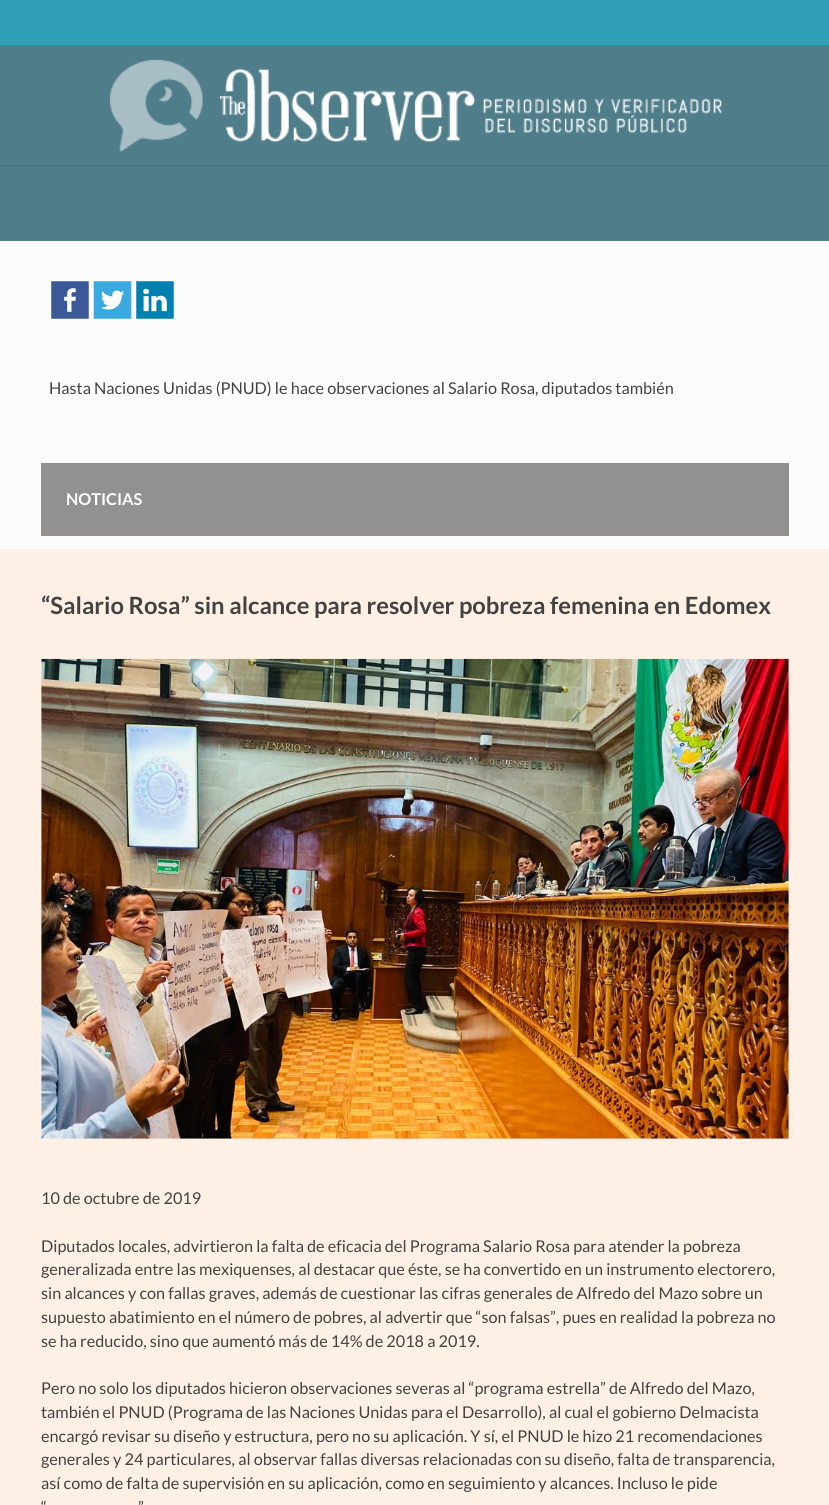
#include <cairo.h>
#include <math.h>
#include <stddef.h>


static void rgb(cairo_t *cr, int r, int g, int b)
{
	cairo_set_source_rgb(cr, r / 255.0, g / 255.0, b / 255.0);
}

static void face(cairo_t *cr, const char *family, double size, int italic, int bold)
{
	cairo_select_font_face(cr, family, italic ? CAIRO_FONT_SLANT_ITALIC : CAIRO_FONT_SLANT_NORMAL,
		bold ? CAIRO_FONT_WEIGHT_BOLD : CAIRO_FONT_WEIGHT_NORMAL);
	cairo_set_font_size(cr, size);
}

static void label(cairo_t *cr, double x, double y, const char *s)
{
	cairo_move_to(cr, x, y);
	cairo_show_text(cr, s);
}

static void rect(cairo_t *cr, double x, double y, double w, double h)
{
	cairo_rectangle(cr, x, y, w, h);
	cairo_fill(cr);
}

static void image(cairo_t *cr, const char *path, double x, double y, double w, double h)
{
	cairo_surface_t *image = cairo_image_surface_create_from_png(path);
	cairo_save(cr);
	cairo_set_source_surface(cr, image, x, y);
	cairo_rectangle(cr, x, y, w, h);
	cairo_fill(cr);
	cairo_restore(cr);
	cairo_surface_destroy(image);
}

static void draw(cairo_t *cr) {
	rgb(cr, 252, 252, 252);
	cairo_paint(cr);
	rgb(cr, 79, 125, 138);
	rect(cr, 0, 45, 829, 196);
	rgb(cr, 48, 160, 184);
	rect(cr, 0, 0, 829, 45);
	rgb(cr, 73, 115, 127);
	rect(cr, 0, 165, 829, 1);
	image(cr, "image0.png", 109, 59, 614, 93);
	image(cr, "image1.png", 51, 281, 38, 38);
	image(cr, "image2.png", 93, 281, 39, 38);
	image(cr, "image3.png", 136, 281, 38, 38);
	face(cr, "Lato", 16.25, 0, 0);
	rgb(cr, 66, 66, 66);
	label(cr, 49, 394, "Hasta Naciones Unidas (PNUD) le hace observaciones al Salario Rosa, diputados también");
	rgb(cr, 147, 145, 143);
	rect(cr, 41, 463, 748, 73);
	face(cr, "Lato", 16.25, 0, 1);
	rgb(cr, 255, 255, 255);
	label(cr, 66, 505, "NOTICIAS");
	rgb(cr, 255, 240, 229);
	rect(cr, 0, 549, 829, 956);
	face(cr, "Lato", 23.75, 0, 1);
	rgb(cr, 66, 66, 66);
	label(cr, 41, 614, "“Salario Rosa” sin alcance para resolver pobreza femenina en Edomex");
	image(cr, "image4.png", 41, 658, 748, 481);
	face(cr, "Lato", 16.25, 0, 0);
	label(cr, 41, 1204, "10 de octubre de 2019");
	label(cr, 41, 1252, "Diputados locales, advirtieron la falta de eficacia del Programa Salario Rosa para atender la pobreza");
	label(cr, 41, 1275, "generalizada entre las mexiquenses, al destacar que éste, se ha convertido en un instrumento electorero,");
	label(cr, 41, 1299, "sin alcances y con fallas graves, además de cuestionar las cifras generales de Alfredo del Mazo sobre un");
	label(cr, 41, 1323, "supuesto abatimiento en el número de pobres, al advertir que “son falsas”, pues en realidad la pobreza no");
	label(cr, 41, 1347, "se ha reducido, sino que aumentó más de 14% de 2018 a 2019.");
	label(cr, 41, 1394, "Pero no solo los diputados hicieron observaciones severas al “programa estrella” de Alfredo del Mazo,");
	label(cr, 41, 1418, "también el PNUD (Programa de las Naciones Unidas para el Desarrollo), al cual el gobierno Delmacista");
	label(cr, 41, 1442, "encargó revisar su diseño y estructura, pero no su aplicación. Y sí, el PNUD le hizo 21 recomendaciones");
	label(cr, 41, 1465, "generales y 24 particulares, al observar fallas diversas relacionadas con su diseño, falta de transparencia,");
	label(cr, 41, 1489, "así como de falta de supervisión en su aplicación, como en seguimiento y alcances. Incluso le pide");
	label(cr, 41, 1513, "“");
	label(cr, 138, 1513, "”");
}

int main(void) {
	cairo_surface_t *surface = cairo_image_surface_create(CAIRO_FORMAT_RGB24, 829, 1505);
	cairo_t *cr = cairo_create(surface);
	cairo_font_options_t *options = cairo_font_options_create();
	cairo_font_options_set_hint_metrics(options, CAIRO_HINT_METRICS_OFF);
	cairo_font_options_set_hint_style(options, CAIRO_HINT_STYLE_NONE);
	cairo_set_font_options(cr, options);
	cairo_set_miter_limit(cr, 4);
	draw(cr);
	cairo_surface_write_to_png(surface, "render.png");
	cairo_font_options_destroy(options);
	cairo_destroy(cr);
	cairo_surface_destroy(surface);
	return 0;
}
